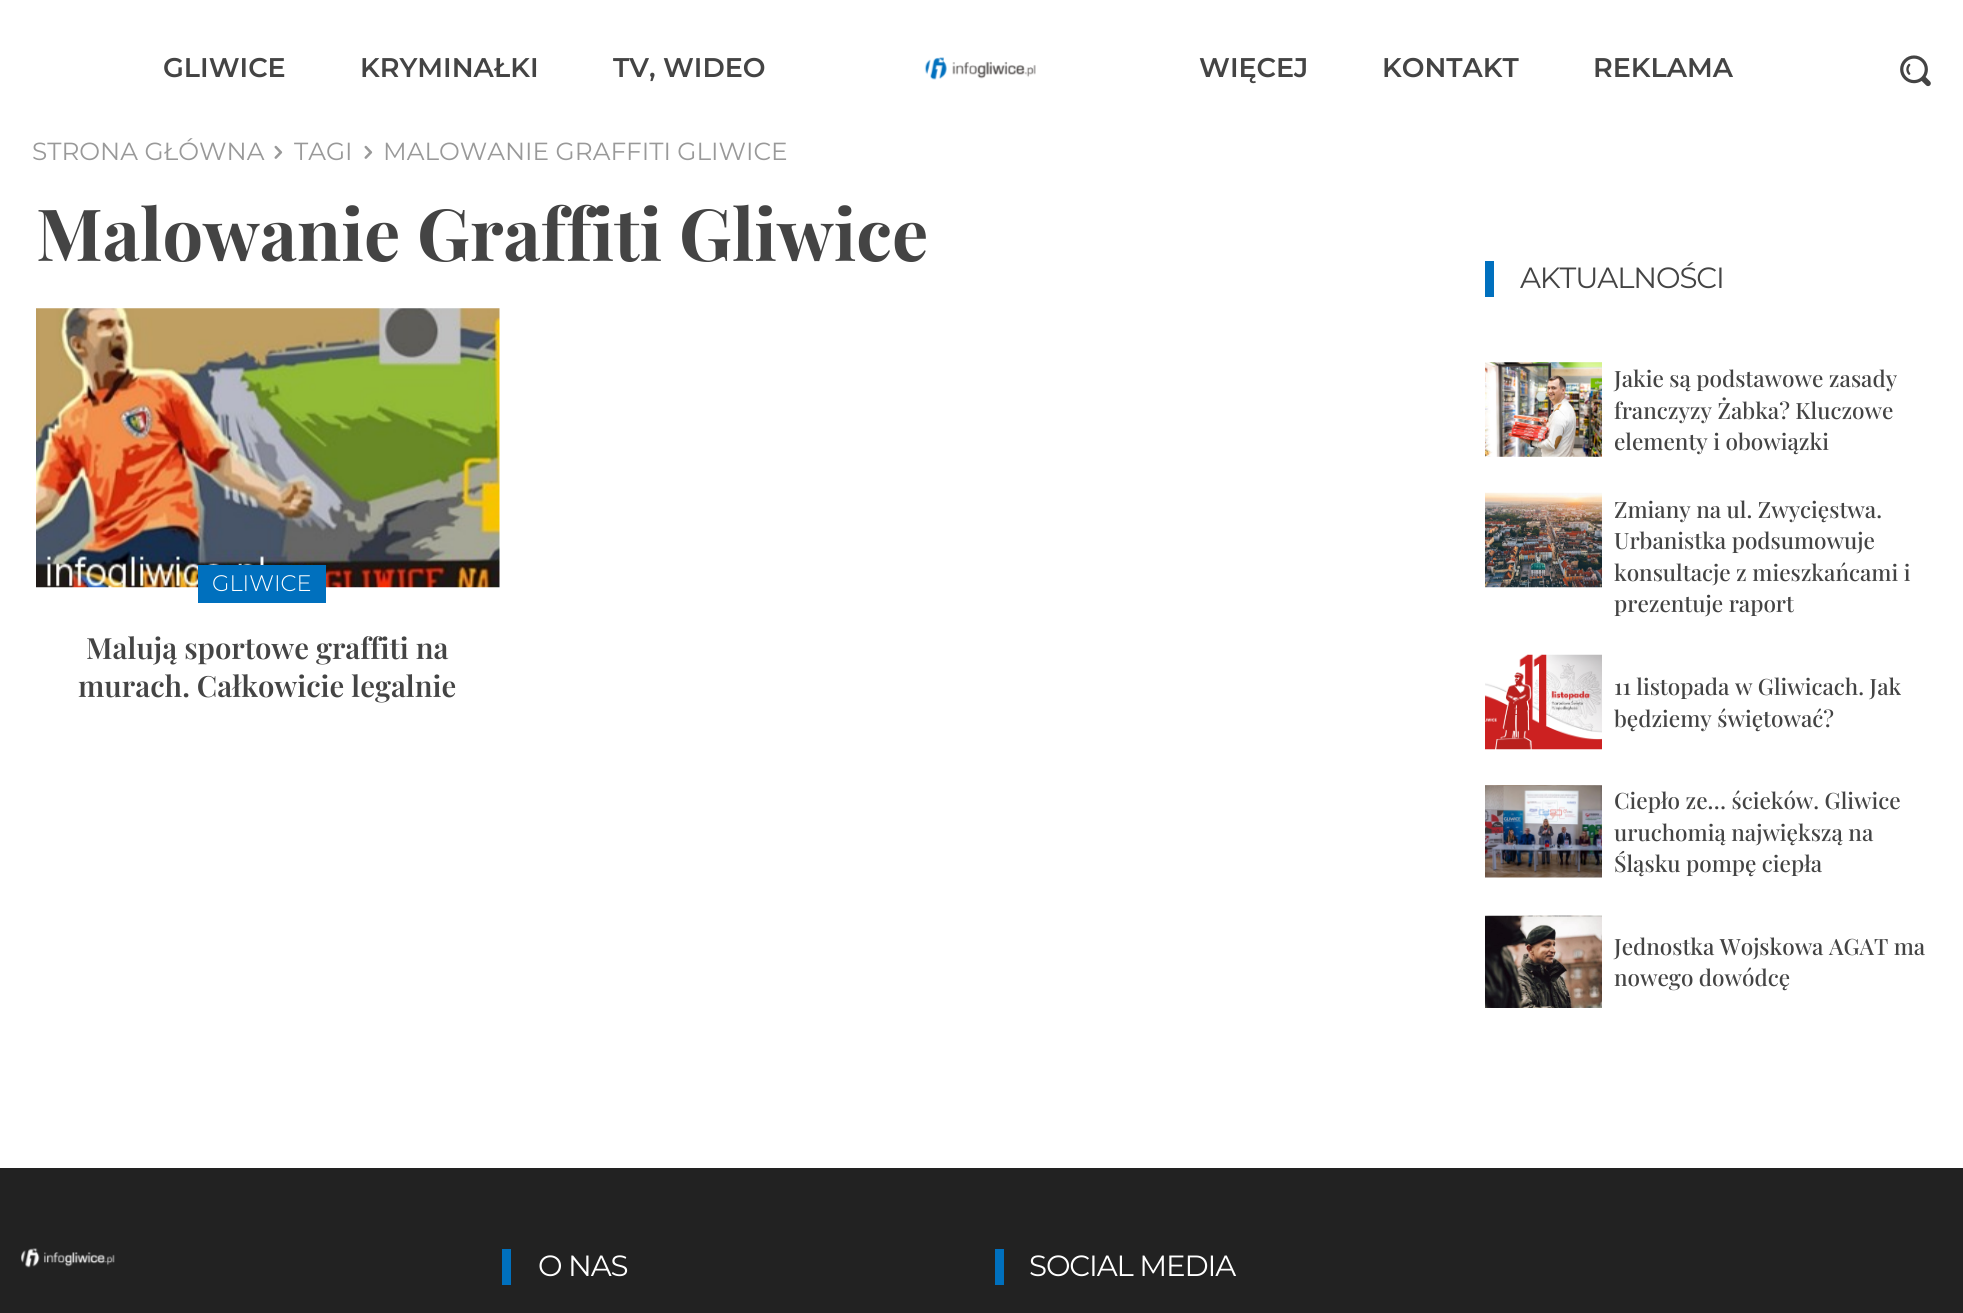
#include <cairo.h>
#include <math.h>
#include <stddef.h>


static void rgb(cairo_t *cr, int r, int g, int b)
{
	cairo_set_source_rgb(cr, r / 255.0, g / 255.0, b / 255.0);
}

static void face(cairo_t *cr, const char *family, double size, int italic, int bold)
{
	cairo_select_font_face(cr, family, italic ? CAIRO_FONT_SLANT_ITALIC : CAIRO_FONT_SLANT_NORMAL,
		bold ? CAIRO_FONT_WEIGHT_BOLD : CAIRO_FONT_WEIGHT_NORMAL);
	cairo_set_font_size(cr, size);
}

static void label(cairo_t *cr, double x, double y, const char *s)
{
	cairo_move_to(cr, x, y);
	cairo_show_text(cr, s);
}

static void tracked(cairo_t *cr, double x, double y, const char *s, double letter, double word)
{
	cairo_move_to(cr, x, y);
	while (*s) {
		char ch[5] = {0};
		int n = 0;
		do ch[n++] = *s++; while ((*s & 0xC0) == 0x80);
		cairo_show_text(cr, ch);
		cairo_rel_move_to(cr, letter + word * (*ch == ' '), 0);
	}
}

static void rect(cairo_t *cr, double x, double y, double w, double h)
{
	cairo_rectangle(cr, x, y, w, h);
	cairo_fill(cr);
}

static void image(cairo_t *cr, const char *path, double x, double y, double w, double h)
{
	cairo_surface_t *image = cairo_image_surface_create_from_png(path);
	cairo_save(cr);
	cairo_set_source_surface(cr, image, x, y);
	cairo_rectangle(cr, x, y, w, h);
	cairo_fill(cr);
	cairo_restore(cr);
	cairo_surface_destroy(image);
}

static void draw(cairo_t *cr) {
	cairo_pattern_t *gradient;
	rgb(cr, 255, 255, 255);
	cairo_paint(cr);
	face(cr, "Montserrat SemiBold", 27, 0, 0);
	rgb(cr, 68, 68, 68);
	label(cr, 163, 77, "GLIWICE");
	label(cr, 360, 77, "KRYMINAŁKI");
	label(cr, 613, 77, "TV, WIDEO");
	image(cr, "image0.png", 924, 57, 112, 23);
	label(cr, 1199, 77, "WIĘCEJ");
	label(cr, 1382, 77, "KONTAKT");
	label(cr, 1593, 77, "REKLAMA");
	image(cr, "image1.png", 1900, 55, 31, 32);
	face(cr, "Montserrat", 24.75, 0, 0);
	rgb(cr, 153, 153, 153);
	label(cr, 32, 160, "STRONA GŁÓWNA");
	image(cr, "image2.png", 274, 145, 9, 14);
	label(cr, 294, 160, "TAGI");
	image(cr, "image2.png", 364, 145, 9, 14);
	label(cr, 383, 160, "MALOWANIE GRAFFITI GLIWICE");
	face(cr, "Playfair Display", 72, 0, 1);
	rgb(cr, 68, 68, 68);
	label(cr, 36, 261, "Malowanie Graffiti Gliwice");
	image(cr, "image3.png", 36, 308, 464, 280);
	rgb(cr, 0, 112, 190);
	rect(cr, 198, 565, 128, 38);
	face(cr, "Montserrat Light", 22.5, 0, 0);
	rgb(cr, 255, 255, 255);
	label(cr, 212, 591, "GLIWICE");
	face(cr, "Playfair Display SemiBold", 29.25, 0, 0);
	rgb(cr, 68, 68, 68);
	label(cr, 86, 659, "Malują sportowe graffiti na");
	label(cr, 78, 697, "murach. Całkowicie legalnie");
	rgb(cr, 0, 112, 190);
	rect(cr, 1485, 261, 9, 36);
	face(cr, "Montserrat", 29.25, 0, 0);
	rgb(cr, 68, 68, 68);
	tracked(cr, 1520, 288, "AKTUALNOŚCI", -1.1, 0);
	image(cr, "image4.png", 1485, 362, 117, 95);
	face(cr, "Playfair Display Medium", 22.5, 0, 0);
	label(cr, 1614, 387, "Jakie są podstawowe zasady");
	label(cr, 1614, 419, "franczyzy Żabka? Kluczowe");
	label(cr, 1614, 450, "elementy i obowiązki");
	image(cr, "image5.png", 1485, 492, 117, 96);
	label(cr, 1614, 518, "Zmiany na ul. Zwycięstwa.");
	label(cr, 1614, 549, "Urbanistka podsumowuje");
	label(cr, 1614, 581, "konsultacje z mieszkańcami i");
	label(cr, 1614, 612, "prezentuje raport");
	image(cr, "image6.png", 1485, 654, 117, 96);
	label(cr, 1614, 695, "11 listopada w Gliwicach. Jak");
	label(cr, 1614, 727, "będziemy świętować?");
	image(cr, "image7.png", 1485, 785, 117, 93);
	label(cr, 1614, 809, "Ciepło ze… ścieków. Gliwice");
	label(cr, 1614, 841, "uruchomią największą na");
	label(cr, 1614, 872, "Śląsku pompę ciepła");
	image(cr, "image8.png", 1485, 915, 117, 93);
	label(cr, 1614, 955, "Jednostka Wojskowa AGAT ma");
	label(cr, 1614, 986, "nowego dowódcę");
	gradient = cairo_pattern_create_linear(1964, 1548, 0, 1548);
	cairo_pattern_add_color_stop_rgba(gradient, 0, 0, 0, 0, 1);
	cairo_pattern_add_color_stop_rgba(gradient, 1, 0.133, 0.133, 0.133, 1);
	cairo_set_source(cr, gradient);
	cairo_pattern_destroy(gradient);
	rect(cr, 0, 1168, 2, 145);
	rgb(cr, 34, 34, 34);
	rect(cr, 2, 1168, 1961, 145);
	image(cr, "image9.png", 21, 1248, 94, 20);
	rgb(cr, 0, 112, 190);
	rect(cr, 502, 1249, 9, 36);
	face(cr, "Montserrat", 29.25, 0, 0);
	rgb(cr, 255, 255, 255);
	tracked(cr, 538, 1276, "O NAS", -1.1, 0);
	rgb(cr, 0, 112, 190);
	rect(cr, 995, 1249, 9, 36);
	rgb(cr, 255, 255, 255);
	tracked(cr, 1029, 1276, "SOCIAL MEDIA", -1.1, 0);
}

int main(void) {
	cairo_surface_t *surface = cairo_image_surface_create(CAIRO_FORMAT_RGB24, 1963, 1313);
	cairo_t *cr = cairo_create(surface);
	cairo_font_options_t *options = cairo_font_options_create();
	cairo_font_options_set_hint_metrics(options, CAIRO_HINT_METRICS_OFF);
	cairo_font_options_set_hint_style(options, CAIRO_HINT_STYLE_NONE);
	cairo_set_font_options(cr, options);
	cairo_set_miter_limit(cr, 4);
	draw(cr);
	cairo_surface_write_to_png(surface, "render.png");
	cairo_font_options_destroy(options);
	cairo_destroy(cr);
	cairo_surface_destroy(surface);
	return 0;
}
